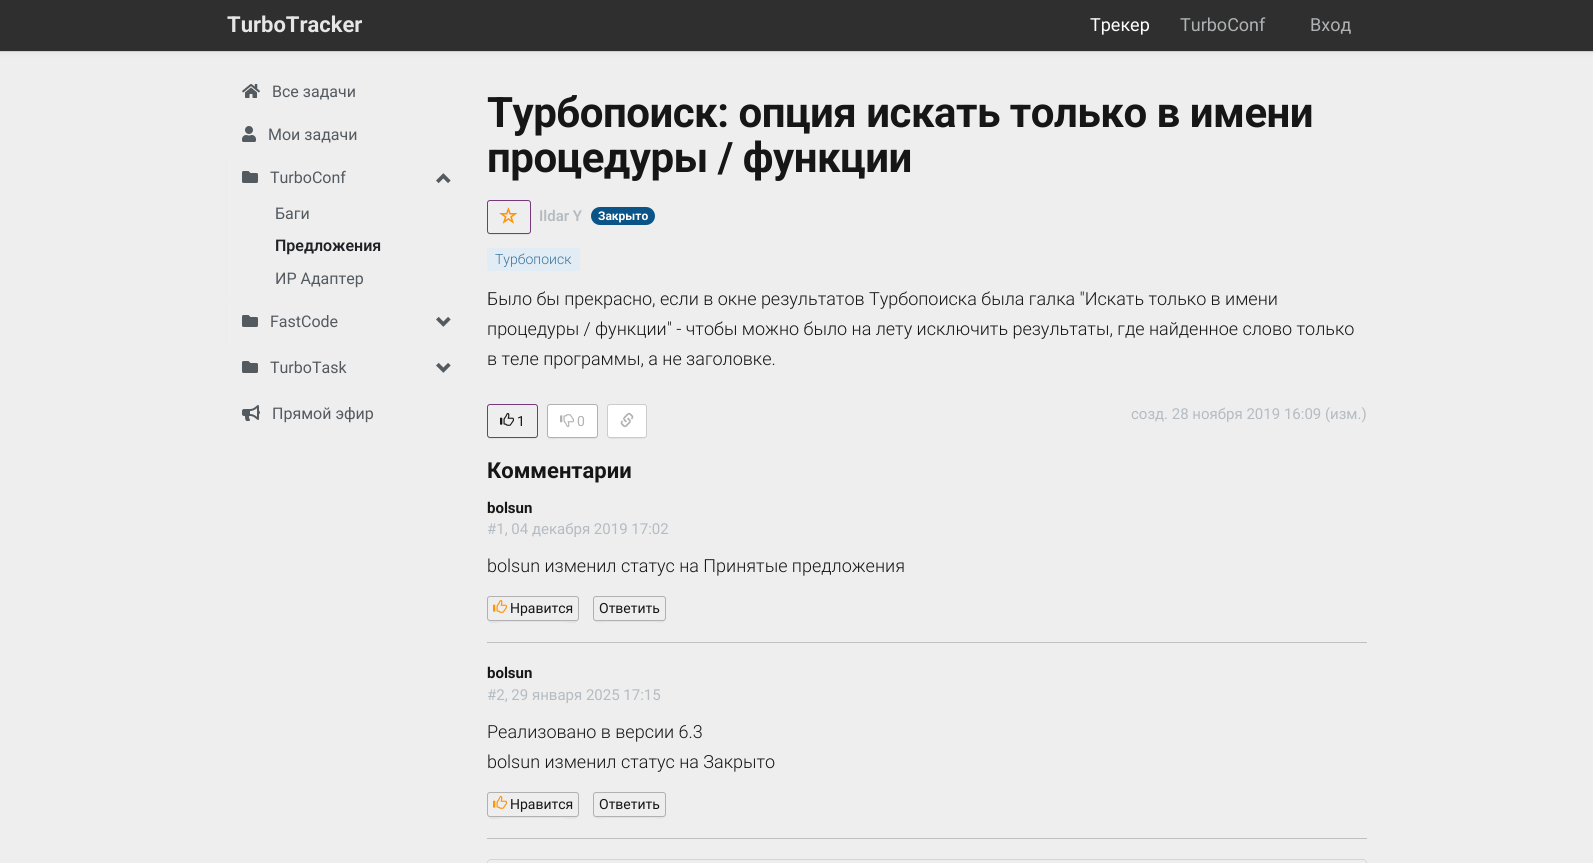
#include <cairo.h>
#include <math.h>
#include <stddef.h>


static void rgb(cairo_t *cr, int r, int g, int b)
{
	cairo_set_source_rgb(cr, r / 255.0, g / 255.0, b / 255.0);
}

static void face(cairo_t *cr, const char *family, double size, int italic, int bold)
{
	cairo_select_font_face(cr, family, italic ? CAIRO_FONT_SLANT_ITALIC : CAIRO_FONT_SLANT_NORMAL,
		bold ? CAIRO_FONT_WEIGHT_BOLD : CAIRO_FONT_WEIGHT_NORMAL);
	cairo_set_font_size(cr, size);
}

static void label(cairo_t *cr, double x, double y, const char *s)
{
	cairo_move_to(cr, x, y);
	cairo_show_text(cr, s);
}

static void tracked(cairo_t *cr, double x, double y, const char *s, double letter, double word)
{
	cairo_move_to(cr, x, y);
	while (*s) {
		char ch[5] = {0};
		int n = 0;
		do ch[n++] = *s++; while ((*s & 0xC0) == 0x80);
		cairo_show_text(cr, ch);
		cairo_rel_move_to(cr, letter + word * (*ch == ' '), 0);
	}
}

static void rect(cairo_t *cr, double x, double y, double w, double h)
{
	cairo_rectangle(cr, x, y, w, h);
	cairo_fill(cr);
}

static void rrect(cairo_t *cr, double x, double y, double w, double h, double r)
{
	cairo_new_sub_path(cr);
	cairo_arc(cr, x + w - r, y + h - r, r, 0, M_PI / 2);
	cairo_arc(cr, x + r, y + h - r, r, M_PI / 2, M_PI);
	cairo_arc(cr, x + r, y + r, r, M_PI, 1.5 * M_PI);
	cairo_arc(cr, x + w - r, y + r, r, 1.5 * M_PI, 2 * M_PI);
	cairo_close_path(cr);
}

static void soft_shadow(cairo_t *cr, double x, double y, double w, double h, double r, double blur, double alpha)
{
	cairo_push_group_with_content(cr, CAIRO_CONTENT_ALPHA);
	cairo_set_operator(cr, CAIRO_OPERATOR_SOURCE);
	for (int i = 15; i >= -15 && fmin(w, h) + blur * i / 3 > 0; i -= 2) {
		double e = blur * i / 6;
		cairo_set_source_rgba(cr, 0, 0, 0, alpha * erfc((i - 1) / 8.5) / 2);
		rrect(cr, x - e, y - e, w + 2 * e, h + 2 * e, fmax(0, fmin(r + e + blur * .6, fmin(w, h) / 2 + e)));
		cairo_fill(cr);
	}
	cairo_pattern_t *soft = cairo_pop_group(cr);
	cairo_mask(cr, soft);
	cairo_pattern_destroy(soft);
}

static void image(cairo_t *cr, const char *path, double x, double y, double w, double h)
{
	cairo_surface_t *image = cairo_image_surface_create_from_png(path);
	cairo_save(cr);
	cairo_set_source_surface(cr, image, x, y);
	cairo_rectangle(cr, x, y, w, h);
	cairo_fill(cr);
	cairo_restore(cr);
	cairo_surface_destroy(image);
}

static void draw(cairo_t *cr) {
	rgb(cr, 238, 238, 238);
	cairo_paint(cr);
	rgb(cr, 59, 64, 69);
	soft_shadow(cr, 0, 1, 1593, 51, 0, 3, 0.1);
	cairo_set_source_rgba(cr, 0.047, 0.051, 0.055, 0.1);
	rect(cr, 0, 51, 1593, 1);
	rgb(cr, 47, 47, 47);
	rect(cr, 0, 0, 1593, 51);
	face(cr, "Roboto", 22, 0, 1);
	rgb(cr, 230, 230, 230);
	label(cr, 227, 32, "TurboTracker");
	face(cr, "Roboto", 18, 0, 0);
	rgb(cr, 255, 255, 255);
	label(cr, 1090, 31, "Трекер");
	rgb(cr, 175, 177, 179);
	label(cr, 1180, 31, "TurboConf");
	label(cr, 1310, 31, "Вход");
	image(cr, "image0.png", 242, 84, 18, 14);
	face(cr, "Roboto", 16, 0, 0);
	rgb(cr, 83, 90, 96);
	label(cr, 272, 97, "Все задачи");
	image(cr, "image1.png", 242, 126, 14, 16);
	label(cr, 268, 140, "Мои задачи");
	rgb(cr, 0, 0, 0);
	soft_shadow(cr, 227, 158, 240, 144, 4, 0.5, 0.05);
	rgb(cr, 238, 238, 238);
	cairo_new_path(cr);
	cairo_move_to(cr, 230, 157);
	cairo_line_to(cr, 464, 157);
	cairo_curve_to(cr, 465.5, 157, 467, 158.5, 467, 160);
	cairo_line_to(cr, 467, 203);
	cairo_line_to(cr, 227, 203);
	cairo_line_to(cr, 227, 160);
	cairo_curve_to(cr, 227, 158.5, 228.5, 157, 230, 157);
	cairo_close_path(cr);
	cairo_fill(cr);
	image(cr, "image2.png", 242, 171, 16, 12);
	rgb(cr, 83, 90, 96);
	label(cr, 270, 183, "TurboConf");
	image(cr, "image3.png", 436, 173, 15, 11);
	rgb(cr, 238, 238, 238);
	rect(cr, 227, 203, 240, 98);
	rgb(cr, 83, 90, 96);
	label(cr, 275, 219, "Баги");
	face(cr, "Roboto SemiBold", 16, 0, 0);
	rgb(cr, 32, 33, 36);
	label(cr, 275, 251, "Предложения");
	face(cr, "Roboto", 16, 0, 0);
	rgb(cr, 83, 90, 96);
	label(cr, 275, 284, "ИР Адаптер");
	rgb(cr, 0, 0, 0);
	soft_shadow(cr, 227, 302, 240, 46, 4, 0.5, 0.05);
	rgb(cr, 238, 238, 238);
	cairo_new_path(cr);
	cairo_move_to(cr, 230, 301);
	cairo_line_to(cr, 464, 301);
	cairo_curve_to(cr, 465.5, 301, 467, 302.5, 467, 304);
	cairo_line_to(cr, 467, 347);
	cairo_line_to(cr, 227, 347);
	cairo_line_to(cr, 227, 304);
	cairo_curve_to(cr, 227, 302.5, 228.5, 301, 230, 301);
	cairo_close_path(cr);
	cairo_fill(cr);
	image(cr, "image2.png", 242, 315, 16, 12);
	rgb(cr, 83, 90, 96);
	label(cr, 270, 327, "FastCode");
	image(cr, "image4.png", 436, 316, 15, 11);
	rgb(cr, 238, 238, 238);
	cairo_new_path(cr);
	cairo_move_to(cr, 230, 347);
	cairo_line_to(cr, 464, 347);
	cairo_curve_to(cr, 465.5, 347, 467, 348.5, 467, 350);
	cairo_line_to(cr, 467, 393);
	cairo_line_to(cr, 227, 393);
	cairo_line_to(cr, 227, 350);
	cairo_curve_to(cr, 227, 348.5, 228.5, 347, 230, 347);
	cairo_close_path(cr);
	cairo_fill(cr);
	image(cr, "image2.png", 242, 361, 16, 12);
	rgb(cr, 83, 90, 96);
	label(cr, 270, 373, "TurboTask");
	image(cr, "image4.png", 436, 362, 15, 11);
	image(cr, "image5.png", 242, 405, 18, 16);
	label(cr, 272, 419, "Прямой эфир");
	face(cr, "Roboto", 42, 0, 1);
	rgb(cr, 22, 22, 22);
	tracked(cr, 487, 127, "Турбопоиск: опция искать только в имени", -0.5, 0);
	tracked(cr, 487, 172, "процедуры / функции", -0.5, 0);
	rgb(cr, 226, 226, 226);
	cairo_new_path(cr);
	cairo_move_to(cr, 487, 231);
	cairo_curve_to(cr, 487, 236, 492, 235, 496, 235);
	cairo_line_to(cr, 522, 235);
	cairo_curve_to(cr, 526, 235, 531, 236, 531, 231);
	cairo_curve_to(cr, 531, 233, 530, 234, 528, 234);
	cairo_line_to(cr, 490, 234);
	cairo_curve_to(cr, 488, 234, 487, 233, 487, 231);
	cairo_close_path(cr);
	cairo_fill(cr);
	rrect(cr, 487.5, 200.5, 43, 33, 2.5);
	rgb(cr, 120, 56, 123);
	cairo_set_line_width(cr, 1);
	cairo_stroke(cr);
	image(cr, "image6.png", 499, 207, 19, 17);
	face(cr, "Roboto SemiBold", 15, 0, 0);
	rgb(cr, 180, 188, 194);
	label(cr, 539, 221, "Ildar Y");
	rgb(cr, 10, 84, 136);
	rrect(cr, 591, 207, 64, 18, 9);
	cairo_fill(cr);
	face(cr, "Roboto", 12, 0, 1);
	rgb(cr, 255, 255, 255);
	label(cr, 598, 220, "Закрыто");
	rgb(cr, 225, 236, 244);
	rrect(cr, 487, 248, 93, 23, 2);
	cairo_fill(cr);
	face(cr, "Roboto Light", 14, 0, 0);
	rgb(cr, 57, 115, 157);
	label(cr, 495, 264, "Турбопоиск");
	face(cr, "Roboto Light", 18, 0, 0);
	rgb(cr, 22, 22, 22);
	label(cr, 487, 305, "Было бы прекрасно, если в окне результатов Турбопоиска была галка \"Искать только в имени");
	label(cr, 487, 335, "процедуры / функции\" - чтобы можно было на лету исключить результаты, где найденное слово только");
	label(cr, 487, 365, "в теле программы, а не заголовке.");
	rgb(cr, 226, 226, 226);
	cairo_new_path(cr);
	cairo_move_to(cr, 487, 435);
	cairo_curve_to(cr, 487, 441, 493, 439, 498, 439);
	cairo_line_to(cr, 528, 439);
	cairo_curve_to(cr, 532, 439, 538, 441, 538, 435);
	cairo_curve_to(cr, 538, 437, 537, 438, 535, 438);
	cairo_line_to(cr, 490, 438);
	cairo_curve_to(cr, 488, 438, 487, 437, 487, 435);
	cairo_close_path(cr);
	cairo_fill(cr);
	rrect(cr, 487.5, 404.5, 50, 33, 2.5);
	rgb(cr, 120, 56, 123);
	cairo_stroke(cr);
	image(cr, "image7.png", 500, 413, 14, 13);
	face(cr, "Roboto", 14, 0, 0);
	rgb(cr, 22, 22, 22);
	label(cr, 517, 426, "1");
	rgb(cr, 226, 226, 226);
	cairo_new_path(cr);
	cairo_move_to(cr, 547, 435);
	cairo_curve_to(cr, 547, 441, 553, 439, 558, 439);
	cairo_line_to(cr, 588, 439);
	cairo_curve_to(cr, 592, 439, 598, 441, 598, 435);
	cairo_curve_to(cr, 598, 437, 597, 438, 595, 438);
	cairo_line_to(cr, 550, 438);
	cairo_curve_to(cr, 548, 438, 547, 437, 547, 435);
	cairo_close_path(cr);
	cairo_fill(cr);
	rgb(cr, 255, 255, 255);
	rrect(cr, 547.5, 404.5, 50, 33, 2.5);
	cairo_fill_preserve(cr);
	rgb(cr, 175, 177, 179);
	cairo_stroke(cr);
	image(cr, "image8.png", 560, 414, 14, 13);
	label(cr, 577, 426, "0");
	rgb(cr, 226, 226, 226);
	cairo_new_path(cr);
	cairo_move_to(cr, 607, 435);
	cairo_curve_to(cr, 607, 440, 612, 439, 616, 439);
	cairo_line_to(cr, 638, 439);
	cairo_curve_to(cr, 642, 439, 647, 440, 647, 435);
	cairo_curve_to(cr, 647, 437, 646, 438, 644, 438);
	cairo_line_to(cr, 610, 438);
	cairo_curve_to(cr, 608, 438, 607, 437, 607, 435);
	cairo_close_path(cr);
	cairo_fill(cr);
	rgb(cr, 255, 255, 255);
	rrect(cr, 607.5, 404.5, 39, 33, 2.5);
	cairo_fill_preserve(cr);
	rgb(cr, 204, 204, 204);
	cairo_stroke(cr);
	image(cr, "image9.png", 620, 412, 14, 16);
	face(cr, "Roboto", 15, 0, 0);
	rgb(cr, 180, 188, 194);
	label(cr, 1131, 419, "созд. 28 ноября 2019 16:09 (изм.)");
	face(cr, "Roboto", 22, 0, 1);
	rgb(cr, 22, 22, 22);
	label(cr, 487, 478, "Комментарии");
	face(cr, "Roboto", 15, 0, 1);
	label(cr, 487, 513, "bolsun");
	face(cr, "Roboto", 15, 0, 0);
	rgb(cr, 180, 188, 194);
	label(cr, 487, 534, "#1, 04 декабря 2019 17:02");
	face(cr, "Roboto Light", 18, 0, 0);
	rgb(cr, 22, 22, 22);
	label(cr, 487, 572, "bolsun изменил статус на Принятые предложения");
	rgb(cr, 226, 226, 226);
	cairo_new_path(cr);
	cairo_move_to(cr, 487, 618);
	cairo_curve_to(cr, 487, 626, 501, 622, 504, 622);
	cairo_line_to(cr, 562, 622);
	cairo_curve_to(cr, 565, 622, 579, 626, 579, 618);
	cairo_curve_to(cr, 579, 620, 578, 621, 576, 621);
	cairo_line_to(cr, 490, 621);
	cairo_curve_to(cr, 488, 621, 487, 620, 487, 618);
	cairo_close_path(cr);
	cairo_fill(cr);
	rrect(cr, 487.5, 596.5, 91, 24, 2.5);
	rgb(cr, 175, 177, 179);
	cairo_stroke(cr);
	image(cr, "image10.png", 493, 600, 14, 13);
	face(cr, "Roboto", 14, 0, 0);
	rgb(cr, 22, 22, 22);
	label(cr, 510, 613, "Нравится");
	rgb(cr, 226, 226, 226);
	cairo_new_path(cr);
	cairo_move_to(cr, 593, 618);
	cairo_curve_to(cr, 593, 625, 603, 622, 607, 622);
	cairo_line_to(cr, 652, 622);
	cairo_curve_to(cr, 656, 622, 666, 625, 666, 618);
	cairo_curve_to(cr, 666, 620, 665, 621, 663, 621);
	cairo_line_to(cr, 596, 621);
	cairo_curve_to(cr, 594, 621, 593, 620, 593, 618);
	cairo_close_path(cr);
	cairo_fill(cr);
	rrect(cr, 593.5, 596.5, 72, 24, 2.5);
	rgb(cr, 175, 177, 179);
	cairo_stroke(cr);
	rgb(cr, 22, 22, 22);
	label(cr, 599, 613, "Ответить");
	rgb(cr, 191, 191, 191);
	rect(cr, 487, 642, 880, 1);
	face(cr, "Roboto", 15, 0, 1);
	rgb(cr, 22, 22, 22);
	label(cr, 487, 678, "bolsun");
	face(cr, "Roboto", 15, 0, 0);
	rgb(cr, 180, 188, 194);
	label(cr, 487, 700, "#2, 29 января 2025 17:15");
	face(cr, "Roboto Light", 18, 0, 0);
	rgb(cr, 22, 22, 22);
	label(cr, 487, 738, "Реализовано в версии 6.3");
	label(cr, 487, 768, "bolsun изменил статус на Закрыто");
	rgb(cr, 226, 226, 226);
	cairo_new_path(cr);
	cairo_move_to(cr, 487, 814);
	cairo_curve_to(cr, 487, 822, 501, 818, 504, 818);
	cairo_line_to(cr, 562, 818);
	cairo_curve_to(cr, 565, 818, 579, 822, 579, 814);
	cairo_curve_to(cr, 579, 816, 578, 817, 576, 817);
	cairo_line_to(cr, 490, 817);
	cairo_curve_to(cr, 488, 817, 487, 816, 487, 814);
	cairo_close_path(cr);
	cairo_fill(cr);
	rrect(cr, 487.5, 792.5, 91, 24, 2.5);
	rgb(cr, 175, 177, 179);
	cairo_stroke(cr);
	image(cr, "image10.png", 493, 796, 14, 13);
	face(cr, "Roboto", 14, 0, 0);
	rgb(cr, 22, 22, 22);
	label(cr, 510, 809, "Нравится");
	rgb(cr, 226, 226, 226);
	cairo_new_path(cr);
	cairo_move_to(cr, 593, 814);
	cairo_curve_to(cr, 593, 821, 603, 818, 607, 818);
	cairo_line_to(cr, 652, 818);
	cairo_curve_to(cr, 656, 818, 666, 821, 666, 814);
	cairo_curve_to(cr, 666, 816, 665, 817, 663, 817);
	cairo_line_to(cr, 596, 817);
	cairo_curve_to(cr, 594, 817, 593, 816, 593, 814);
	cairo_close_path(cr);
	cairo_fill(cr);
	rrect(cr, 593.5, 792.5, 72, 24, 2.5);
	rgb(cr, 175, 177, 179);
	cairo_stroke(cr);
	rgb(cr, 22, 22, 22);
	label(cr, 599, 809, "Ответить");
	rgb(cr, 191, 191, 191);
	rect(cr, 487, 838, 880, 1);
	rgb(cr, 206, 212, 218);
	cairo_set_fill_rule(cr, CAIRO_FILL_RULE_EVEN_ODD);
	cairo_new_path(cr);
	cairo_move_to(cr, 491, 859);
	cairo_line_to(cr, 1363, 859);
	cairo_curve_to(cr, 1365, 859, 1367, 861, 1367, 863);
	cairo_line_to(cr, 1367, 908);
	cairo_line_to(cr, 487, 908);
	cairo_line_to(cr, 487, 863);
	cairo_curve_to(cr, 487, 861, 489, 859, 491, 859);
	cairo_close_path(cr);
	cairo_move_to(cr, 491, 860);
	cairo_line_to(cr, 1363, 860);
	cairo_curve_to(cr, 1365, 860, 1366, 861, 1366, 863);
	cairo_line_to(cr, 1366, 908);
	cairo_line_to(cr, 488, 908);
	cairo_line_to(cr, 488, 863);
	cairo_curve_to(cr, 488, 861, 489, 860, 491, 860);
	cairo_close_path(cr);
	cairo_fill(cr);
}

int main(void) {
	cairo_surface_t *surface = cairo_image_surface_create(CAIRO_FORMAT_RGB24, 1593, 863);
	cairo_t *cr = cairo_create(surface);
	cairo_font_options_t *options = cairo_font_options_create();
	cairo_font_options_set_hint_metrics(options, CAIRO_HINT_METRICS_OFF);
	cairo_font_options_set_hint_style(options, CAIRO_HINT_STYLE_NONE);
	cairo_set_font_options(cr, options);
	cairo_set_miter_limit(cr, 4);
	draw(cr);
	cairo_surface_write_to_png(surface, "render.png");
	cairo_font_options_destroy(options);
	cairo_destroy(cr);
	cairo_surface_destroy(surface);
	return 0;
}
